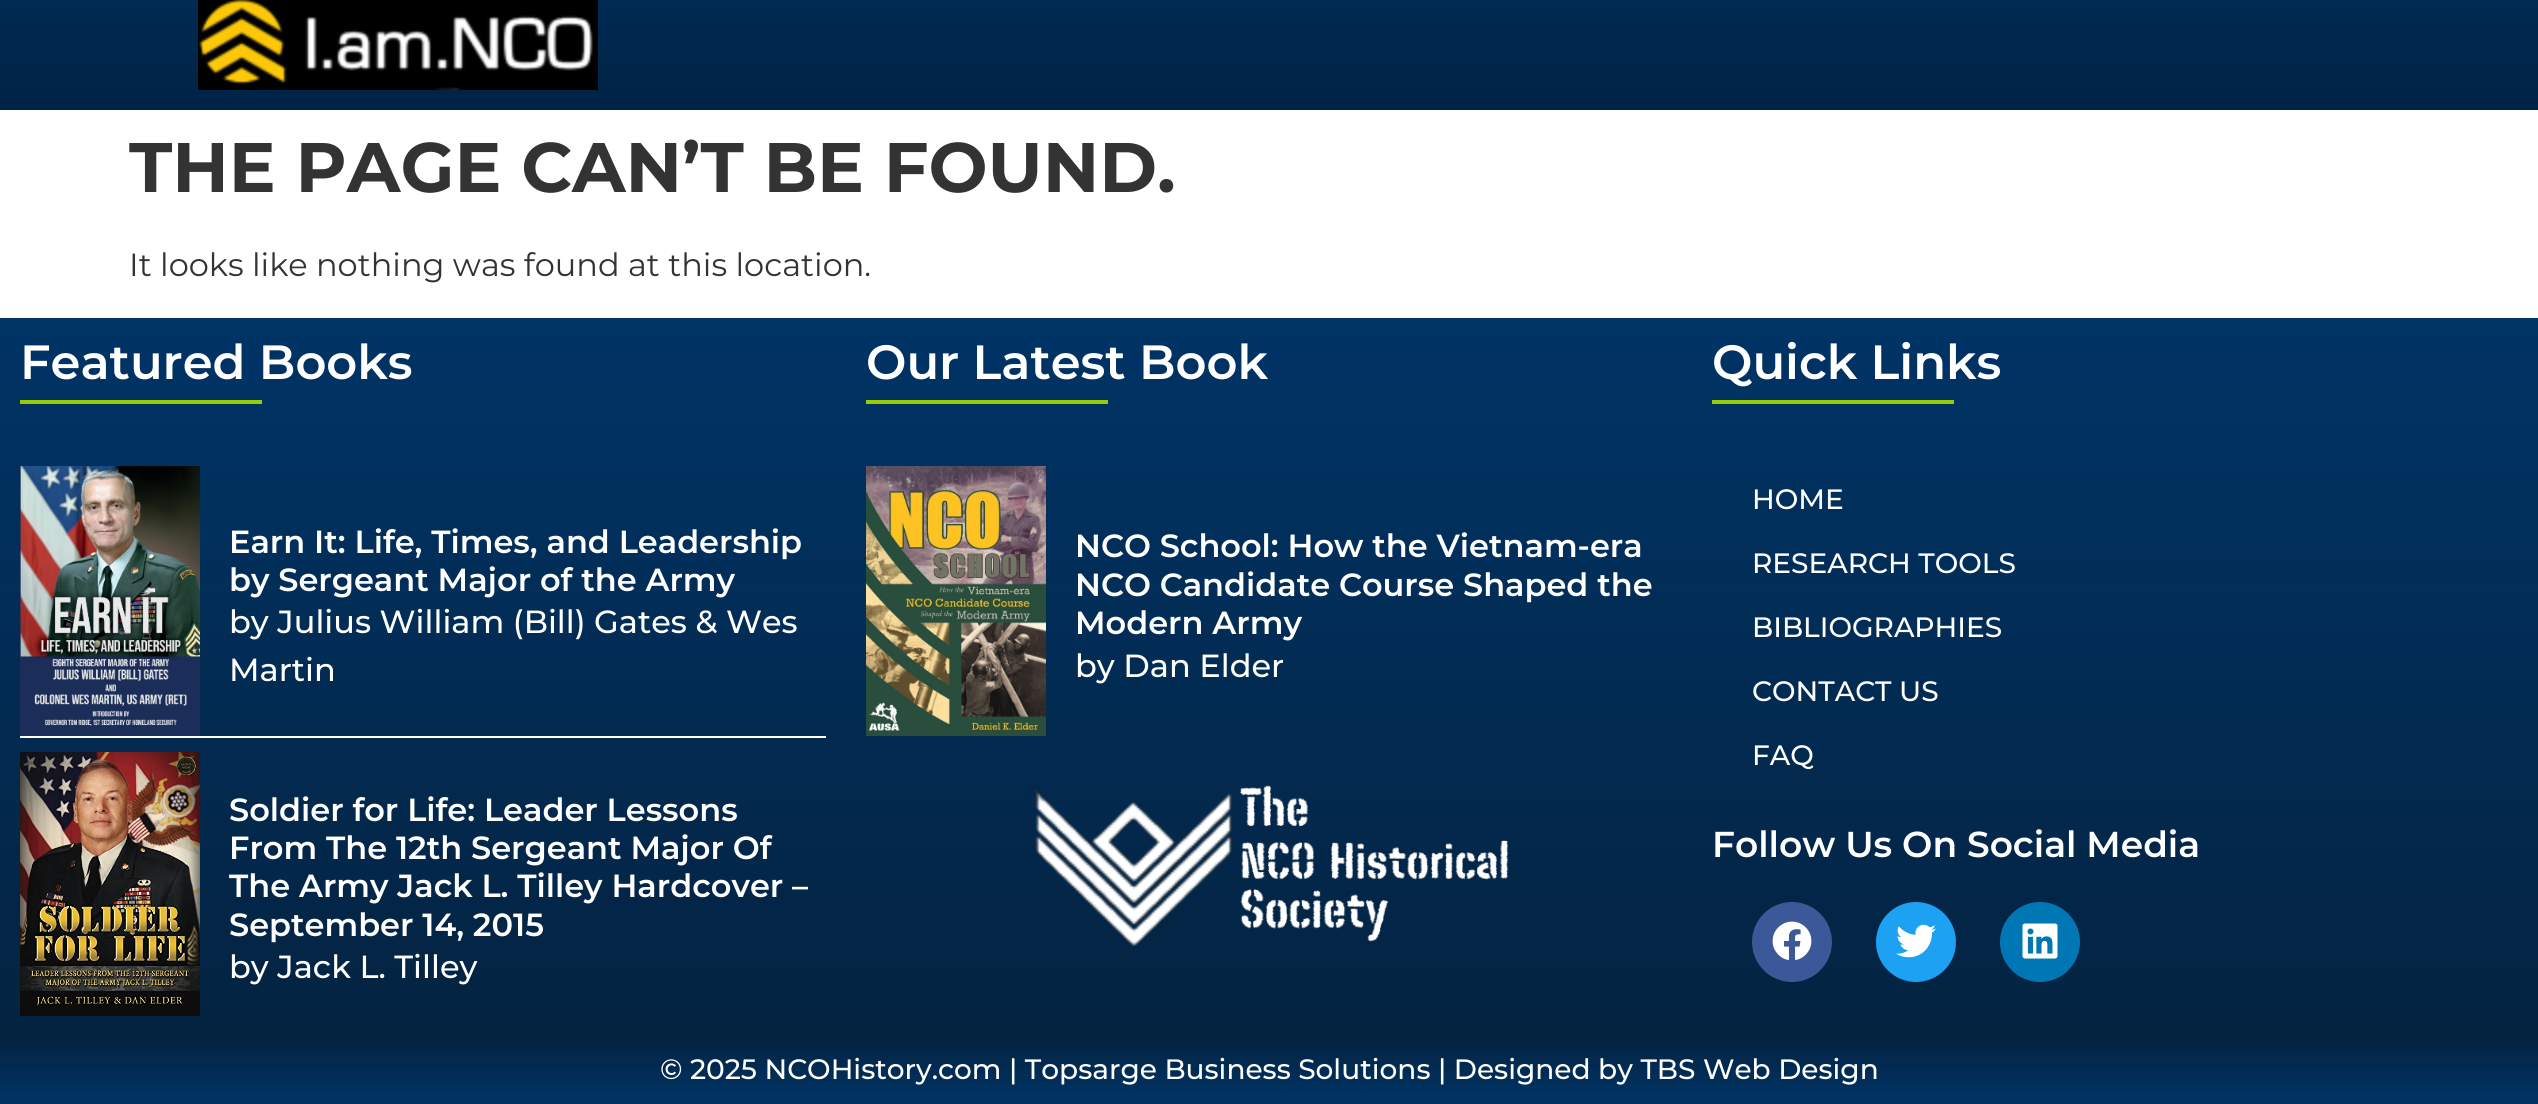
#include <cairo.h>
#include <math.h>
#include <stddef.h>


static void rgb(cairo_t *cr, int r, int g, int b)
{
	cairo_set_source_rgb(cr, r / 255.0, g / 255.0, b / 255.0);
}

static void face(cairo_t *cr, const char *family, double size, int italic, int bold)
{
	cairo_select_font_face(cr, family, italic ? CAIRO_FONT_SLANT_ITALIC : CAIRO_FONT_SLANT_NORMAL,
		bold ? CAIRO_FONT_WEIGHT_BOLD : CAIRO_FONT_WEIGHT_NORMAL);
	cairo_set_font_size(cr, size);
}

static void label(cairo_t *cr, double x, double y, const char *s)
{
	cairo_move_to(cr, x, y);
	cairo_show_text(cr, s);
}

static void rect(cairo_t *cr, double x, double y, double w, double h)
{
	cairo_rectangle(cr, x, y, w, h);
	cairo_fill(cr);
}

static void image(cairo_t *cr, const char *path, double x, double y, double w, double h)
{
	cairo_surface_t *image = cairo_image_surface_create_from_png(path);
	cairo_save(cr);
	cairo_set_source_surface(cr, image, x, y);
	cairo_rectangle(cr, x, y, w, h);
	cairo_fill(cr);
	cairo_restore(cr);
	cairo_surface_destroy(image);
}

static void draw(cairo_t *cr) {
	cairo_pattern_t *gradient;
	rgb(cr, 255, 255, 255);
	cairo_paint(cr);
	gradient = cairo_pattern_create_linear(1269, -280, 1269, 110);
	cairo_pattern_add_color_stop_rgba(gradient, 0, 0, 0.235, 0.459, 1);
	cairo_pattern_add_color_stop_rgba(gradient, 1, 0, 0.137, 0.271, 1);
	cairo_set_source(cr, gradient);
	cairo_pattern_destroy(gradient);
	rect(cr, 0, 0, 2538, 110);
	image(cr, "image0.png", 198, 0, 400, 90);
	face(cr, "Montserrat", 70, 0, 1);
	rgb(cr, 51, 51, 51);
	label(cr, 129, 192, "THE PAGE CAN’T BE FOUND.");
	face(cr, "Montserrat", 32, 0, 0);
	label(cr, 129, 276, "It looks like nothing was found at this location.");
	gradient = cairo_pattern_create_linear(1269, 318, 1269, 1036);
	cairo_pattern_add_color_stop_rgba(gradient, 0, 0, 0.204, 0.4, 1);
	cairo_pattern_add_color_stop_rgba(gradient, 1, 0.016, 0.137, 0.255, 1);
	cairo_set_source(cr, gradient);
	cairo_pattern_destroy(gradient);
	rect(cr, 0, 318, 2538, 718);
	face(cr, "Montserrat SemiBold", 48, 0, 0);
	rgb(cr, 255, 255, 255);
	label(cr, 20, 379, "Featured Books");
	rgb(cr, 152, 205, 3);
	rect(cr, 20, 400, 242, 4);
	rgb(cr, 255, 255, 255);
	rect(cr, 20, 736, 806, 2);
	image(cr, "image1.png", 20, 466, 180, 270);
	face(cr, "Montserrat SemiBold", 32, 0, 0);
	label(cr, 229, 553, "Earn It: Life, Times, and Leadership");
	label(cr, 229, 591, "by Sergeant Major of the Army");
	face(cr, "Montserrat Medium", 32, 0, 0);
	label(cr, 229, 633, "by Julius William (Bill) Gates & Wes");
	label(cr, 229, 681, "Martin");
	image(cr, "image2.png", 20, 752, 180, 264);
	face(cr, "Montserrat SemiBold", 32, 0, 0);
	label(cr, 229, 821, "Soldier for Life: Leader Lessons");
	label(cr, 229, 859, "From The 12th Sergeant Major Of");
	label(cr, 229, 897, "The Army Jack L. Tilley Hardcover –");
	label(cr, 229, 936, "September 14, 2015");
	face(cr, "Montserrat Medium", 32, 0, 0);
	label(cr, 229, 978, "by Jack L. Tilley");
	face(cr, "Montserrat SemiBold", 48, 0, 0);
	label(cr, 866, 379, "Our Latest Book");
	rgb(cr, 152, 205, 3);
	rect(cr, 866, 400, 242, 4);
	image(cr, "image3.png", 866, 466, 180, 270);
	face(cr, "Montserrat SemiBold", 32, 0, 0);
	rgb(cr, 255, 255, 255);
	label(cr, 1075, 557, "NCO School: How the Vietnam-era");
	label(cr, 1075, 596, "NCO Candidate Course Shaped the");
	label(cr, 1075, 634, "Modern Army");
	face(cr, "Montserrat Medium", 32, 0, 0);
	label(cr, 1075, 677, "by Dan Elder");
	image(cr, "image4.png", 1030, 785, 479, 163);
	face(cr, "Montserrat SemiBold", 48, 0, 0);
	label(cr, 1712, 379, "Quick Links");
	rgb(cr, 152, 205, 3);
	rect(cr, 1712, 400, 242, 4);
	face(cr, "Montserrat Medium", 28, 0, 0);
	rgb(cr, 255, 255, 255);
	label(cr, 1752, 509, "HOME");
	label(cr, 1752, 573, "RESEARCH TOOLS");
	label(cr, 1752, 637, "BIBLIOGRAPHIES");
	label(cr, 1752, 701, "CONTACT US");
	label(cr, 1752, 765, "FAQ");
	face(cr, "Montserrat SemiBold", 36, 0, 0);
	label(cr, 1712, 857, "Follow Us On Social Media");
	rgb(cr, 59, 89, 152);
	cairo_new_path(cr);
	cairo_arc(cr, 1792, 942, 40, 0, 2 * M_PI);
	cairo_fill(cr);
	image(cr, "image5.png", 1772, 921, 40, 40);
	rgb(cr, 29, 161, 242);
	cairo_arc(cr, 1916, 942, 40, 0, 2 * M_PI);
	cairo_fill(cr);
	image(cr, "image6.png", 1896, 924, 40, 34);
	rgb(cr, 0, 119, 181);
	cairo_arc(cr, 2040, 942, 40, 0, 2 * M_PI);
	cairo_fill(cr);
	image(cr, "image7.png", 2022, 923, 36, 36);
	gradient = cairo_pattern_create_linear(1269, 1036, 1269, 1104);
	cairo_pattern_add_color_stop_rgba(gradient, 0, 0.016, 0.137, 0.255, 1);
	cairo_pattern_add_color_stop_rgba(gradient, 1, 0, 0.204, 0.4, 1);
	cairo_set_source(cr, gradient);
	cairo_pattern_destroy(gradient);
	rect(cr, 0, 1036, 2538, 68);
	face(cr, "Montserrat Medium", 28, 0, 0);
	rgb(cr, 255, 255, 255);
	label(cr, 660, 1079, "© 2025 NCOHistory.com | Topsarge Business Solutions | Designed by TBS Web Design");
}

int main(void) {
	cairo_surface_t *surface = cairo_image_surface_create(CAIRO_FORMAT_RGB24, 2538, 1104);
	cairo_t *cr = cairo_create(surface);
	cairo_font_options_t *options = cairo_font_options_create();
	cairo_font_options_set_hint_metrics(options, CAIRO_HINT_METRICS_OFF);
	cairo_font_options_set_hint_style(options, CAIRO_HINT_STYLE_NONE);
	cairo_set_font_options(cr, options);
	cairo_set_miter_limit(cr, 4);
	draw(cr);
	cairo_surface_write_to_png(surface, "render.png");
	cairo_font_options_destroy(options);
	cairo_destroy(cr);
	cairo_surface_destroy(surface);
	return 0;
}
